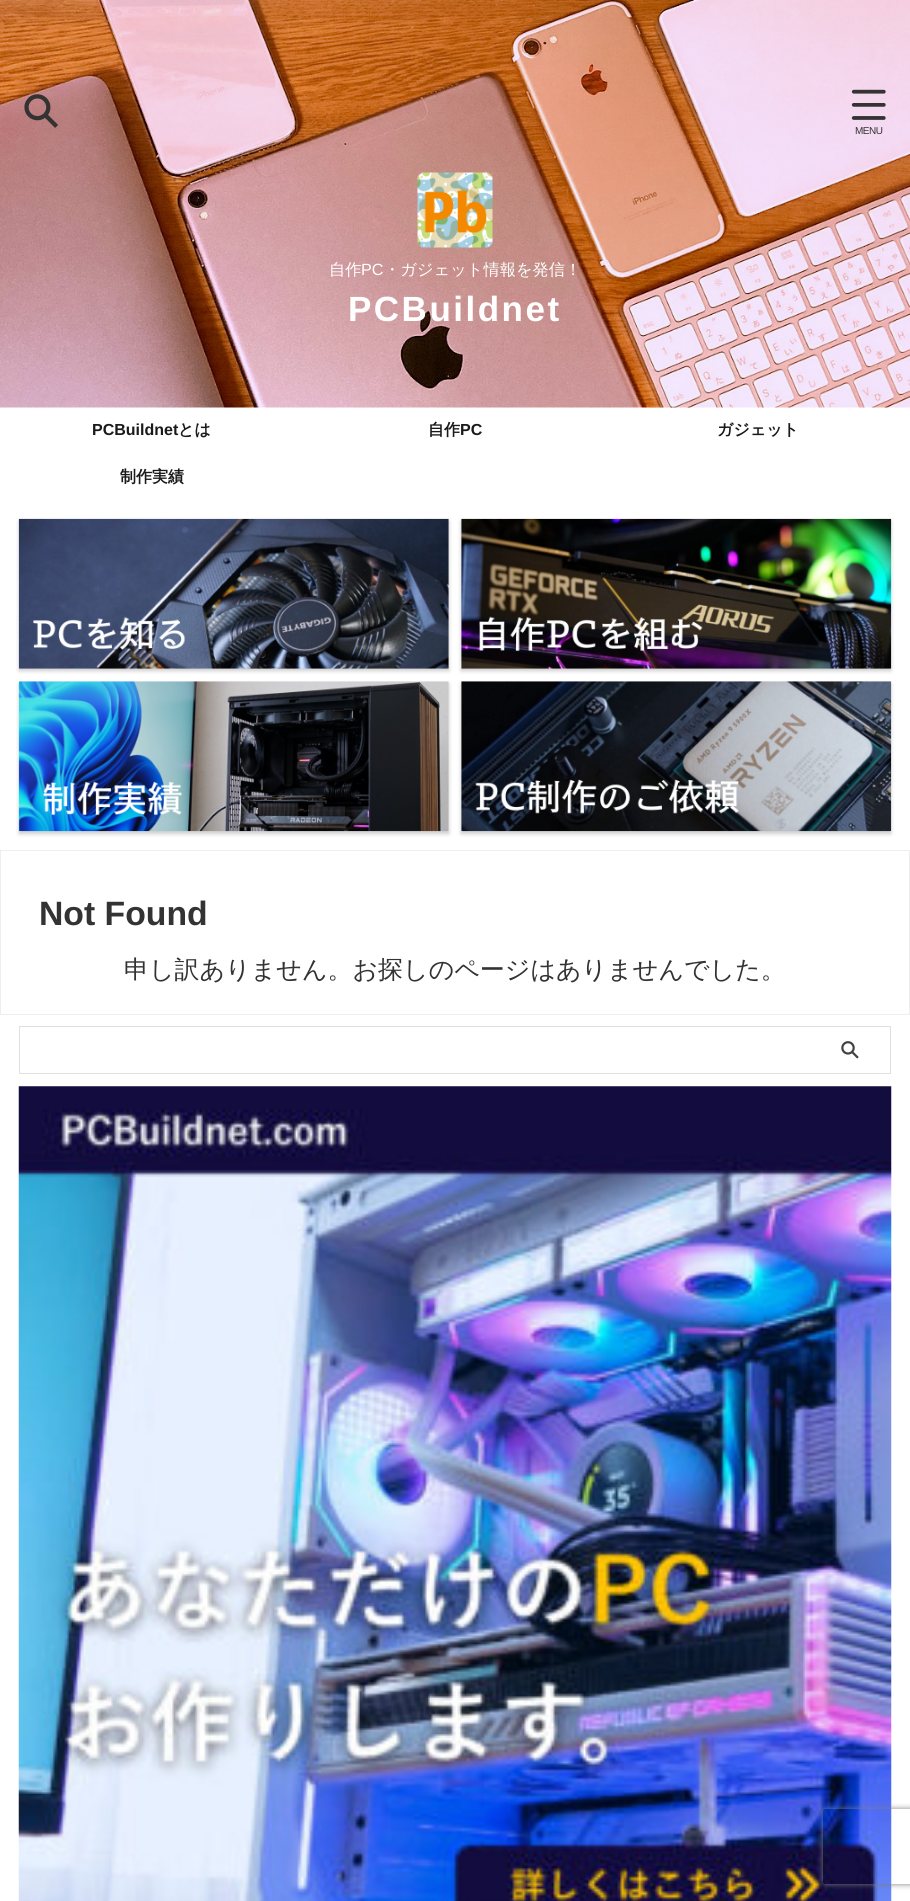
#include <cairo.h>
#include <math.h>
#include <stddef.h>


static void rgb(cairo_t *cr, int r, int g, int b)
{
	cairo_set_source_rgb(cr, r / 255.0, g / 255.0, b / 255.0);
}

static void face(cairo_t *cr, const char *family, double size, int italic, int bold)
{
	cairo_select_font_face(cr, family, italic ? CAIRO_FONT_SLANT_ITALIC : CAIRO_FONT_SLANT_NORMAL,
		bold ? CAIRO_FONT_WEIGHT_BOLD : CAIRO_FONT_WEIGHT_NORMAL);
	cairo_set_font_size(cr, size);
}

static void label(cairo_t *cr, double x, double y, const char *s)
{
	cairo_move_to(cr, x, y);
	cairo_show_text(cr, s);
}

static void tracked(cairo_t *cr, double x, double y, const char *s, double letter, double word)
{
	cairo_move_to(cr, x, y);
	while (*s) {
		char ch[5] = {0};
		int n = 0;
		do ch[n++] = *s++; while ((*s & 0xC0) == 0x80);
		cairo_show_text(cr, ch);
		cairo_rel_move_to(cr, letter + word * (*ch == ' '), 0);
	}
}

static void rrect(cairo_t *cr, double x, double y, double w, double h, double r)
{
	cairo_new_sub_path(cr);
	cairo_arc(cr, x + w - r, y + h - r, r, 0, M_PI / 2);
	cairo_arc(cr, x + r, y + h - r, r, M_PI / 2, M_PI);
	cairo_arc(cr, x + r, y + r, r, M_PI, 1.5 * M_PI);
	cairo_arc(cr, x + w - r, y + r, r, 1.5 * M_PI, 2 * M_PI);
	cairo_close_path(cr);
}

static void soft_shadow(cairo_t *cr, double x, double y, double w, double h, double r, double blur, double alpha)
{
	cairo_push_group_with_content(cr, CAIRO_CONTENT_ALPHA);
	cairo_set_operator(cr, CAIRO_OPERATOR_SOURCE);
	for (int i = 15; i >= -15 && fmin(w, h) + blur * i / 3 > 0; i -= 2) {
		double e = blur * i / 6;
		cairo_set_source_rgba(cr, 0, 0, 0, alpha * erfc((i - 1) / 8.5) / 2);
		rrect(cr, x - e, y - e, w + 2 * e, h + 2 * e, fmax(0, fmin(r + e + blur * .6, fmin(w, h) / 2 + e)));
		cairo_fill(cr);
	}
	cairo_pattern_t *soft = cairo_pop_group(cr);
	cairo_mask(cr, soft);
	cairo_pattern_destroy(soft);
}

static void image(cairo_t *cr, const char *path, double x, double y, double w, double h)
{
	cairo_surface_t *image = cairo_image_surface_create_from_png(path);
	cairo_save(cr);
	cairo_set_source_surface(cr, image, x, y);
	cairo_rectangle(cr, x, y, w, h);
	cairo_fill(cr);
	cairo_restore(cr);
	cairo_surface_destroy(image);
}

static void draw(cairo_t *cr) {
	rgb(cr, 255, 255, 255);
	cairo_paint(cr);
	image(cr, "image0.png", 0, 0, 910, 408);
	image(cr, "image1.png", 24, 94, 34, 34);
	image(cr, "image2.png", 851, 89, 35, 31);
	face(cr, "Liberation Sans", 10, 0, 0);
	rgb(cr, 51, 51, 51);
	tracked(cr, 855, 134, "MENU", -0.5, 0);
	image(cr, "image3.png", 417, 172, 76, 76);
	face(cr, "WenQuanYi Zen Hei Medium", 16.25, 0, 0);
	rgb(cr, 255, 255, 255);
	label(cr, 329, 275, "自作");
	face(cr, "Liberation Sans", 16.25, 0, 0);
	label(cr, 361, 275, "PC");
	face(cr, "WenQuanYi Zen Hei Medium", 16.25, 0, 0);
	label(cr, 384, 275, "・ガジェット情報を発信！");
	face(cr, "Liberation Sans", 35, 0, 1);
	tracked(cr, 348, 321, "PCBuildnet", 2.5, 0);
	face(cr, "Liberation Sans", 16, 0, 1);
	rgb(cr, 26, 26, 26);
	label(cr, 92, 435, "PCBuildnet");
	face(cr, "WenQuanYi Zen Hei", 16, 0, 1);
	label(cr, 178, 435, "とは");
	label(cr, 428, 435, "自作");
	face(cr, "Liberation Sans", 16, 0, 1);
	label(cr, 460, 435, "PC");
	face(cr, "WenQuanYi Zen Hei", 16, 0, 1);
	label(cr, 717, 435, "ガジェット");
	label(cr, 120, 482, "制作実績");
	rgb(cr, 0, 0, 0);
	soft_shadow(cr, 19, 521, 430, 150, 0, 2, 0.2);
	image(cr, "image4.png", 18, 518, 431, 151);
	soft_shadow(cr, 461, 521, 430, 150, 0, 2, 0.2);
	image(cr, "image5.png", 461, 518, 431, 151);
	soft_shadow(cr, 19, 684, 430, 150, 0, 2, 0.2);
	image(cr, "image6.png", 18, 681, 431, 151);
	soft_shadow(cr, 461, 684, 430, 150, 0, 2, 0.2);
	image(cr, "image7.png", 461, 681, 431, 151);
	cairo_rectangle(cr, 0.5, 850.5, 909, 164);
	rgb(cr, 238, 238, 238);
	cairo_set_line_width(cr, 1);
	cairo_stroke(cr);
	face(cr, "Liberation Sans", 33.75, 0, 1);
	rgb(cr, 51, 51, 51);
	label(cr, 39, 925, "Not Found");
	face(cr, "WenQuanYi Zen Hei Medium", 25, 0, 0);
	label(cr, 124, 978, "申し訳ありません。お探しのページはありませんでした。");
	cairo_rectangle(cr, 19.5, 1026.5, 871, 47);
	rgb(cr, 224, 224, 224);
	cairo_stroke(cr);
	image(cr, "image8.png", 841, 1041, 18, 18);
	image(cr, "image9.png", 18, 1086, 874, 815);
	cairo_save(cr);
	cairo_set_fill_rule(cr, CAIRO_FILL_RULE_EVEN_ODD);
	cairo_new_path(cr);
	cairo_move_to(cr, 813, 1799);
	cairo_line_to(cr, 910, 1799);
	cairo_line_to(cr, 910, 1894);
	cairo_line_to(cr, 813, 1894);
	cairo_close_path(cr);
	cairo_move_to(cr, 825.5, 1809);
	cairo_line_to(cr, 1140.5, 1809);
	cairo_curve_to(cr, 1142, 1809, 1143, 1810, 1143, 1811.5);
	cairo_line_to(cr, 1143, 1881.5);
	cairo_curve_to(cr, 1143, 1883, 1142, 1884, 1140.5, 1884);
	cairo_line_to(cr, 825.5, 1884);
	cairo_curve_to(cr, 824, 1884, 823, 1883, 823, 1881.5);
	cairo_line_to(cr, 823, 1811.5);
	cairo_curve_to(cr, 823, 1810, 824, 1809, 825.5, 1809);
	cairo_close_path(cr);
	cairo_clip(cr);
	rgb(cr, 128, 128, 128);
	soft_shadow(cr, 823, 1809, 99, 75, 2.5, 3, 1);
	cairo_restore(cr);
}

int main(void) {
	cairo_surface_t *surface = cairo_image_surface_create(CAIRO_FORMAT_RGB24, 910, 1901);
	cairo_t *cr = cairo_create(surface);
	cairo_font_options_t *options = cairo_font_options_create();
	cairo_font_options_set_hint_metrics(options, CAIRO_HINT_METRICS_OFF);
	cairo_font_options_set_hint_style(options, CAIRO_HINT_STYLE_NONE);
	cairo_set_font_options(cr, options);
	cairo_set_miter_limit(cr, 4);
	draw(cr);
	cairo_surface_write_to_png(surface, "render.png");
	cairo_font_options_destroy(options);
	cairo_destroy(cr);
	cairo_surface_destroy(surface);
	return 0;
}
